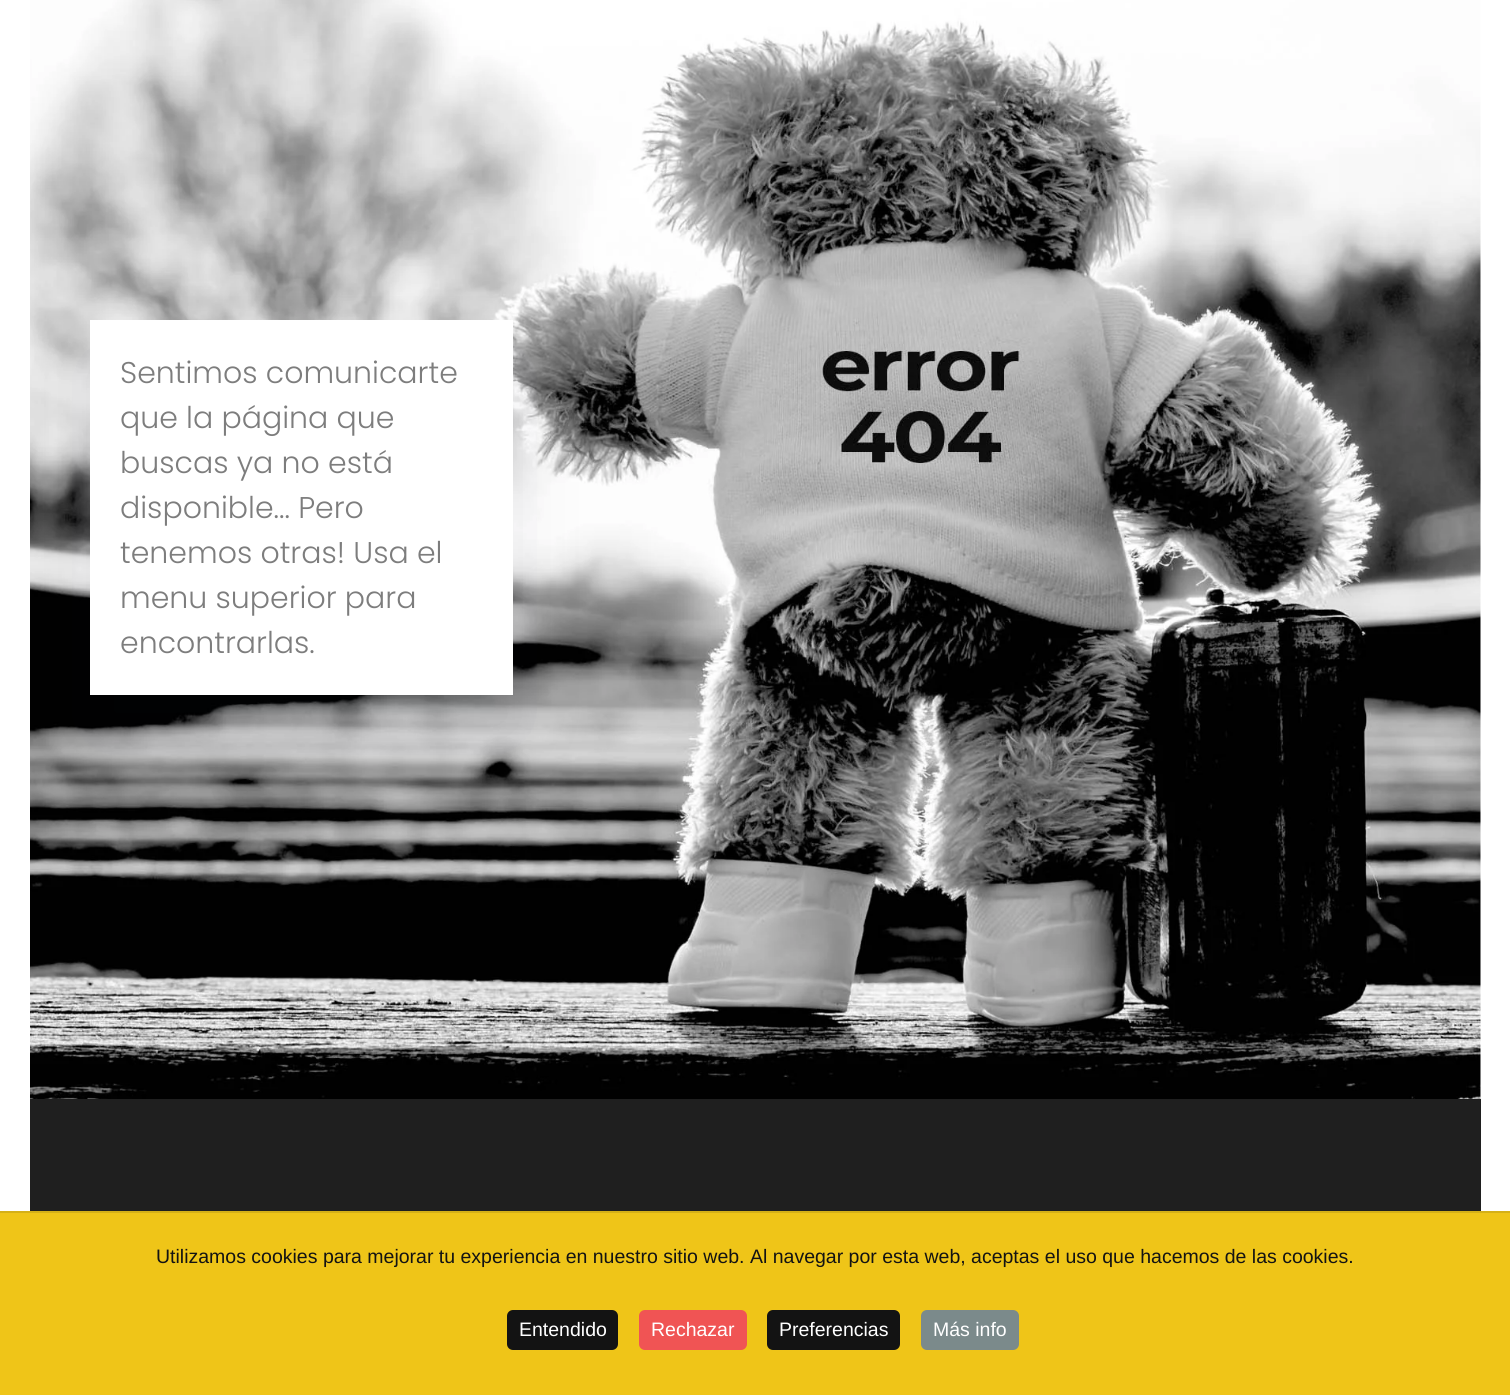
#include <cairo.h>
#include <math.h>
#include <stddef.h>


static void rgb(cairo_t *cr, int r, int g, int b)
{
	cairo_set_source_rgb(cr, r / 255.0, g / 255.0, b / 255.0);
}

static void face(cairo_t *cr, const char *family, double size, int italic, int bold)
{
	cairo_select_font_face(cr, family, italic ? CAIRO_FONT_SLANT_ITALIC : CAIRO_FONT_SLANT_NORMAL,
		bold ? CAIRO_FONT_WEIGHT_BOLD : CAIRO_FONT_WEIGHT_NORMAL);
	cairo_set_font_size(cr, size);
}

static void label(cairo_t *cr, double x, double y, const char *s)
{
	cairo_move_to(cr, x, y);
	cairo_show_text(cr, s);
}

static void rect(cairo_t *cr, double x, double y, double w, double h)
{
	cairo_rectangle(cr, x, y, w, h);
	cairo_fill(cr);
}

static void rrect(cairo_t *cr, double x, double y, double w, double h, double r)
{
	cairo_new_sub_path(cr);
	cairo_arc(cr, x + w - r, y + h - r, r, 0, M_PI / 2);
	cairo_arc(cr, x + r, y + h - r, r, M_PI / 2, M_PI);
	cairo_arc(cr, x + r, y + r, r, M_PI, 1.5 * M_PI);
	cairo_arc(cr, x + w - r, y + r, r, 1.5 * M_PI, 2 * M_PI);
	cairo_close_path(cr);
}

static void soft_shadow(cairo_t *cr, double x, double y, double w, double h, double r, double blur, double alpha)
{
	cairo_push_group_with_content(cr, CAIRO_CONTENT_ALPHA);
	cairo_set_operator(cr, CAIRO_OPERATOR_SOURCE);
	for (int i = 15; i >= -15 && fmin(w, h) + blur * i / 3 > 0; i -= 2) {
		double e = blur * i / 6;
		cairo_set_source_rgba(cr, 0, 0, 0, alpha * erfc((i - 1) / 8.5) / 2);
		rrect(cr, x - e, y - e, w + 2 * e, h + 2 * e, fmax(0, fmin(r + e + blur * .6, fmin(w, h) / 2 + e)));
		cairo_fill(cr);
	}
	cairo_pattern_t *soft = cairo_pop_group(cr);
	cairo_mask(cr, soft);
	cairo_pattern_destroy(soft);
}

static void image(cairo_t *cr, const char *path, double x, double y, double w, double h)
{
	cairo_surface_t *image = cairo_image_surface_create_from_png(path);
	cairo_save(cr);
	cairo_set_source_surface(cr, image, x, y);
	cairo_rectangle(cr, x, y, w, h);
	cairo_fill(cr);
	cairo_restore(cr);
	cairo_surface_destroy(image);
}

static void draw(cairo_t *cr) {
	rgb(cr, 255, 255, 255);
	cairo_paint(cr);
	image(cr, "image0.png", 30, 0, 1451, 1099);
	rgb(cr, 6, 13, 42);
	soft_shadow(cr, 93, 359, 423, 375, 0, 42, 0.06);
	rgb(cr, 255, 255, 255);
	rect(cr, 90, 320, 423, 375);
	face(cr, "Poppins Light", 30, 0, 0);
	rgb(cr, 125, 125, 125);
	label(cr, 120, 383, "Sentimos comunicarte");
	label(cr, 120, 428, "que la página que");
	label(cr, 120, 473, "buscas ya no está");
	label(cr, 120, 518, "disponible... Pero");
	label(cr, 120, 563, "tenemos otras! Usa el");
	label(cr, 120, 608, "menu superior para");
	label(cr, 120, 653, "encontrarlas.");
	rgb(cr, 31, 31, 31);
	rect(cr, 30, 1099, 1451, 112);
	rgb(cr, 239, 197, 24);
	rect(cr, 0, 1213, 1510, 182);
	rgb(cr, 213, 176, 24);
	rect(cr, 0, 1211, 1510, 2);
	face(cr, "Liberation Sans", 19.5, 0, 0);
	rgb(cr, 19, 19, 19);
	label(cr, 156, 1263, "Utilizamos cookies para mejorar tu experiencia en nuestro sitio web. Al navegar por esta web, aceptas el uso que hacemos de las cookies.");
	rrect(cr, 507, 1310, 111, 40, 6);
	cairo_fill(cr);
	rgb(cr, 255, 255, 255);
	label(cr, 519, 1336, "Entendido");
	rgb(cr, 240, 84, 84);
	rrect(cr, 639, 1310, 108, 40, 6);
	cairo_fill(cr);
	rgb(cr, 255, 255, 255);
	label(cr, 651, 1336, "Rechazar");
	rgb(cr, 19, 19, 19);
	rrect(cr, 767, 1310, 133, 40, 6);
	cairo_fill(cr);
	rgb(cr, 255, 255, 255);
	label(cr, 779, 1336, "Preferencias");
	rgb(cr, 123, 138, 139);
	rrect(cr, 921, 1310, 98, 40, 6);
	cairo_fill(cr);
	rgb(cr, 255, 255, 255);
	label(cr, 933, 1336, "Más info");
}

int main(void) {
	cairo_surface_t *surface = cairo_image_surface_create(CAIRO_FORMAT_RGB24, 1510, 1395);
	cairo_t *cr = cairo_create(surface);
	cairo_font_options_t *options = cairo_font_options_create();
	cairo_font_options_set_hint_metrics(options, CAIRO_HINT_METRICS_OFF);
	cairo_font_options_set_hint_style(options, CAIRO_HINT_STYLE_NONE);
	cairo_set_font_options(cr, options);
	cairo_set_miter_limit(cr, 4);
	draw(cr);
	cairo_surface_write_to_png(surface, "render.png");
	cairo_font_options_destroy(options);
	cairo_destroy(cr);
	cairo_surface_destroy(surface);
	return 0;
}
